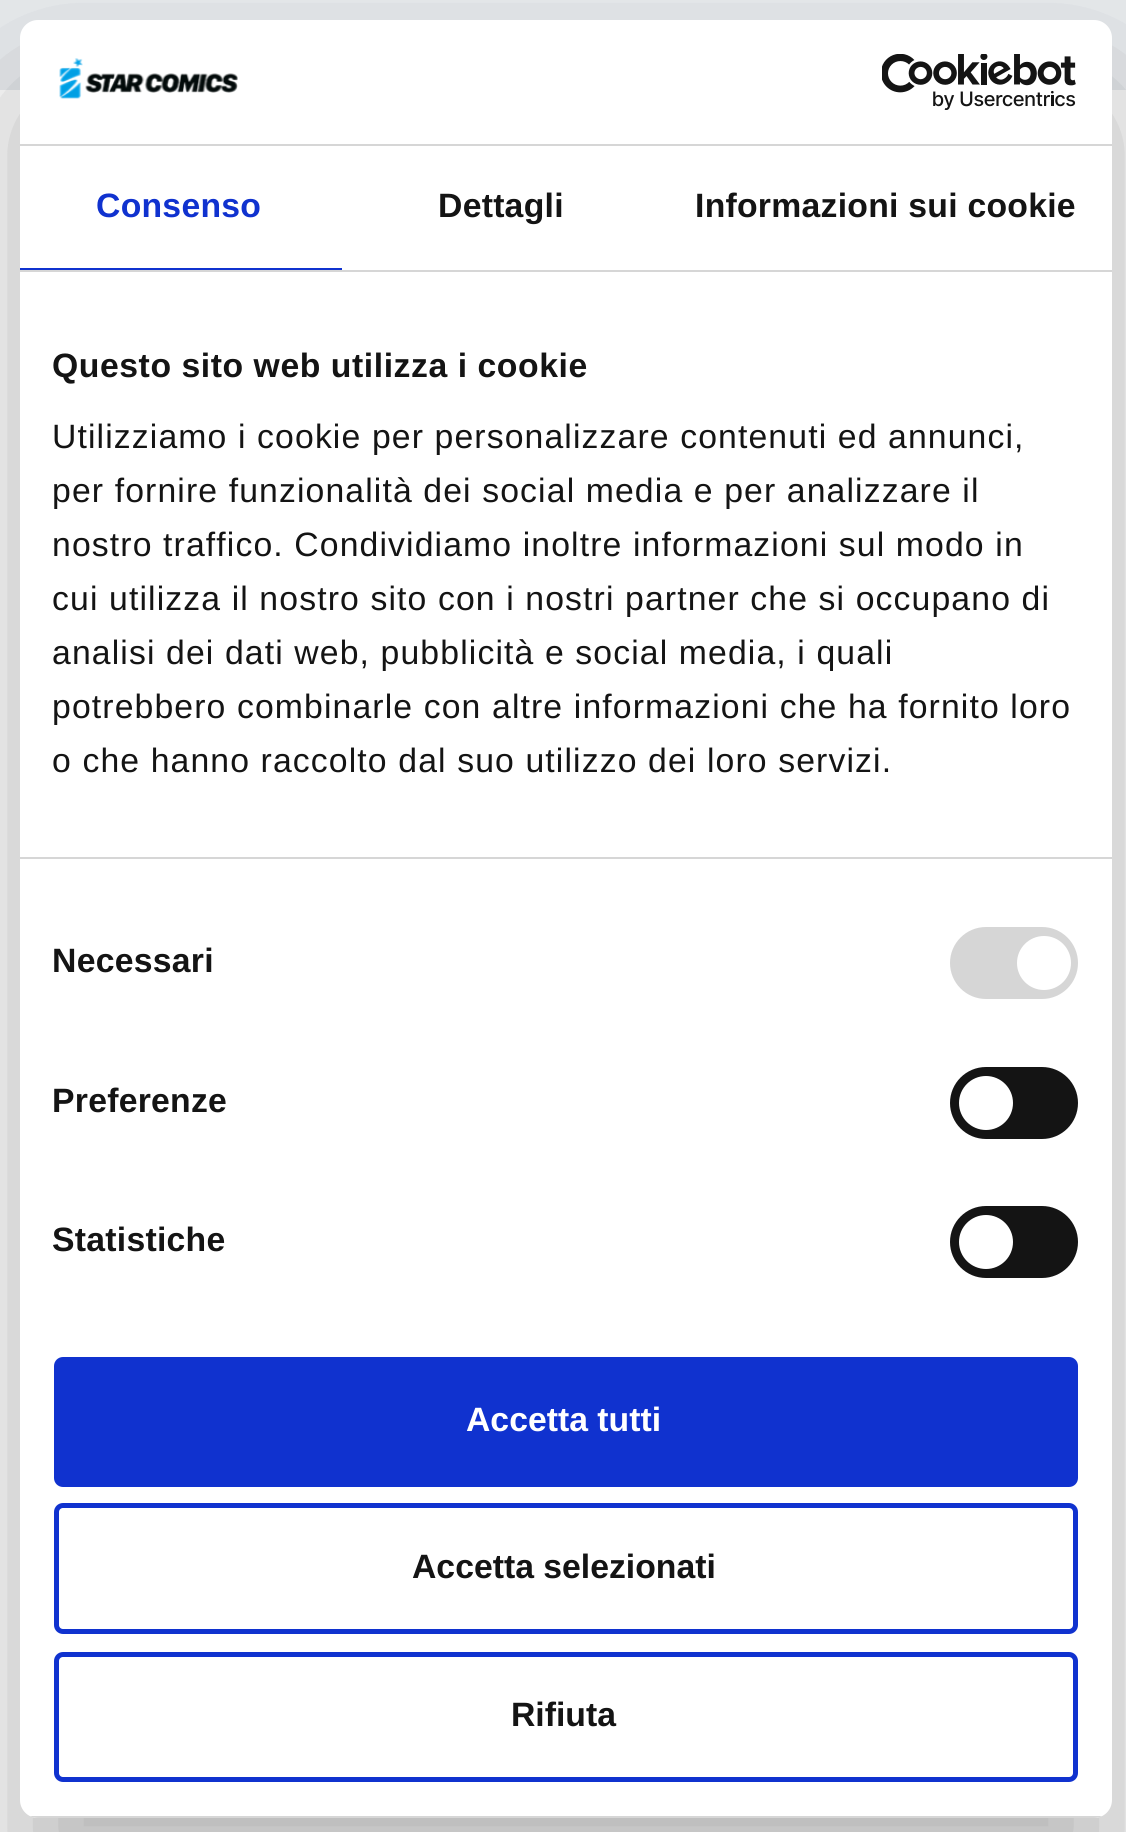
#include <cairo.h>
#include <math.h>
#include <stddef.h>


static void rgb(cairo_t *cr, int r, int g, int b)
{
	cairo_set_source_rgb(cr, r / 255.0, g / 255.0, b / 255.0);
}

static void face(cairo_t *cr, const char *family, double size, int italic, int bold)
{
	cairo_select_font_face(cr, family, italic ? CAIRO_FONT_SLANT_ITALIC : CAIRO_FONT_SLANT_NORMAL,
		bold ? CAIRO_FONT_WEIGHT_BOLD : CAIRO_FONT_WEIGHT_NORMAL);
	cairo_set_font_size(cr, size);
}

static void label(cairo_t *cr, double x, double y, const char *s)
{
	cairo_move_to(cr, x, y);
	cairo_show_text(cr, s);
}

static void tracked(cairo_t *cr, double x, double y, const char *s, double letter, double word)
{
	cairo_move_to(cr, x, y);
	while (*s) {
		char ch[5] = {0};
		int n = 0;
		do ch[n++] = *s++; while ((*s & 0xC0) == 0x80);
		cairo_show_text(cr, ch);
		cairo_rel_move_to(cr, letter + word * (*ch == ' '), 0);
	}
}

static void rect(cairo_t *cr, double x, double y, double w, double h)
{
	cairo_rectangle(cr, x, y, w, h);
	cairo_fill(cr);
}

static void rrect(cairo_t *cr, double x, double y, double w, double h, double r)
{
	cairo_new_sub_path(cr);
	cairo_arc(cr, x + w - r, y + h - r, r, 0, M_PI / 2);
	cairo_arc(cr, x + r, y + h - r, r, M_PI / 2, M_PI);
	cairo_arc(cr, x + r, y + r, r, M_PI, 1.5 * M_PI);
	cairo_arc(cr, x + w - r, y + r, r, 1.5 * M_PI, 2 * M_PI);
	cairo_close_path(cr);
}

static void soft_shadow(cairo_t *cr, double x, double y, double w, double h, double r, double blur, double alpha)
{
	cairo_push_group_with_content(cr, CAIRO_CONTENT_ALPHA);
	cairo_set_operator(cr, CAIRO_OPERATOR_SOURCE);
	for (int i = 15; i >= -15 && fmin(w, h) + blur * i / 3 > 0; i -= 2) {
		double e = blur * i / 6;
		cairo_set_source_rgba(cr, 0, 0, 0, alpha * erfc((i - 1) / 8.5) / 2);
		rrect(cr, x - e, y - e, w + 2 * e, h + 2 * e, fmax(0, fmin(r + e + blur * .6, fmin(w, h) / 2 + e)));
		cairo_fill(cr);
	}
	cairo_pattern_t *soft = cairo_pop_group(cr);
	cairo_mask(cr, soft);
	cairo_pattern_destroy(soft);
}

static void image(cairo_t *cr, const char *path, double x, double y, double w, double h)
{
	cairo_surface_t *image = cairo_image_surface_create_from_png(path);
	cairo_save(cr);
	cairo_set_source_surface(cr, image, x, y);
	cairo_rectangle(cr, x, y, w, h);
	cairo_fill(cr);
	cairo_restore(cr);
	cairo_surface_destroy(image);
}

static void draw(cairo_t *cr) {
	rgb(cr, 255, 255, 255);
	cairo_paint(cr);
	rgb(cr, 233, 236, 239);
	rect(cr, 0, 0, 1126, 90);
	rgb(cr, 0, 0, 0);
	soft_shadow(cr, 20, 92, 1092, 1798, 18, 76.5, 0.3);
	rgb(cr, 255, 255, 255);
	rrect(cr, 20, 20, 1092, 1798, 18);
	cairo_fill(cr);
	rgb(cr, 214, 214, 214);
	rect(cr, 20, 144, 1092, 2);
	image(cr, "image0.png", 59, 58, 179, 41);
	image(cr, "image1.png", 882, 54, 194, 56);
	rect(cr, 20, 270, 1092, 2);
	rgb(cr, 16, 50, 207);
	rect(cr, 20, 268, 322, 2);
	face(cr, "Liberation Sans", 33.75, 0, 1);
	tracked(cr, 96, 217, "Consenso", 0.25, 0);
	rgb(cr, 20, 20, 20);
	tracked(cr, 438, 217, "Dettagli", 0.25, 0);
	tracked(cr, 695, 217, "Informazioni sui cookie", 0.25, 0);
	rgb(cr, 214, 214, 214);
	rect(cr, 20, 857, 1092, 2);
	rgb(cr, 20, 20, 20);
	tracked(cr, 52, 377, "Questo sito web utilizza i cookie", 0.55, 0);
	face(cr, "Liberation Sans", 33.75, 0, 0);
	tracked(cr, 52, 448, "Utilizziamo i cookie per personalizzare contenuti ed annunci,", 1.12, 0);
	tracked(cr, 52, 502, "per fornire funzionalità dei social media e per analizzare il", 1.12, 0);
	tracked(cr, 52, 556, "nostro traffico. Condividiamo inoltre informazioni sul modo in", 1.12, 0);
	tracked(cr, 52, 610, "cui utilizza il nostro sito con i nostri partner che si occupano di", 1.12, 0);
	tracked(cr, 52, 664, "analisi dei dati web, pubblicità e social media, i quali", 1.12, 0);
	tracked(cr, 52, 718, "potrebbero combinarle con altre informazioni che ha fornito loro", 1.12, 0);
	tracked(cr, 52, 772, "o che hanno raccolto dal suo utilizzo dei loro servizi.", 1.12, 0);
	face(cr, "Liberation Sans", 33.75, 0, 1);
	tracked(cr, 52, 972, "Necessari", 0.25, 0);
	rgb(cr, 214, 214, 214);
	rrect(cr, 950, 927, 128, 72, 36);
	cairo_fill(cr);
	rgb(cr, 255, 255, 255);
	cairo_arc(cr, 1044, 963, 27, 0, 2 * M_PI);
	cairo_fill(cr);
	rgb(cr, 20, 20, 20);
	tracked(cr, 52, 1112, "Preferenze", 0.25, 0);
	rrect(cr, 950, 1067, 128, 72, 36);
	cairo_fill(cr);
	rgb(cr, 255, 255, 255);
	cairo_arc(cr, 986, 1103, 27, 0, 2 * M_PI);
	cairo_fill(cr);
	rgb(cr, 20, 20, 20);
	tracked(cr, 52, 1251, "Statistiche", 0.25, 0);
	rrect(cr, 950, 1206, 128, 72, 36);
	cairo_fill(cr);
	rgb(cr, 255, 255, 255);
	cairo_arc(cr, 986, 1242, 27, 0, 2 * M_PI);
	cairo_fill(cr);
	cairo_save(cr);
	rrect(cr, 20, 20, 1092, 1798, 18);
	cairo_clip(cr);
	rgb(cr, 214, 214, 214);
	rect(cr, 30, 1816, 1072, 2);
	cairo_restore(cr);
	rgb(cr, 16, 50, 207);
	rrect(cr, 56.5, 1359.5, 1019, 125, 6.5);
	cairo_fill_preserve(cr);
	cairo_set_line_width(cr, 5);
	cairo_stroke(cr);
	rgb(cr, 255, 255, 255);
	label(cr, 466, 1431, "Accetta tutti");
	rrect(cr, 56.5, 1505.5, 1019, 126, 6.5);
	rgb(cr, 16, 50, 207);
	cairo_stroke(cr);
	rgb(cr, 20, 20, 20);
	label(cr, 412, 1578, "Accetta selezionati");
	rrect(cr, 56.5, 1654.5, 1019, 125, 6.5);
	rgb(cr, 16, 50, 207);
	cairo_stroke(cr);
	rgb(cr, 20, 20, 20);
	label(cr, 511, 1726, "Rifiuta");
}

int main(void) {
	cairo_surface_t *surface = cairo_image_surface_create(CAIRO_FORMAT_RGB24, 1126, 1832);
	cairo_t *cr = cairo_create(surface);
	cairo_font_options_t *options = cairo_font_options_create();
	cairo_font_options_set_hint_metrics(options, CAIRO_HINT_METRICS_OFF);
	cairo_font_options_set_hint_style(options, CAIRO_HINT_STYLE_NONE);
	cairo_set_font_options(cr, options);
	cairo_set_miter_limit(cr, 4);
	draw(cr);
	cairo_surface_write_to_png(surface, "render.png");
	cairo_font_options_destroy(options);
	cairo_destroy(cr);
	cairo_surface_destroy(surface);
	return 0;
}
